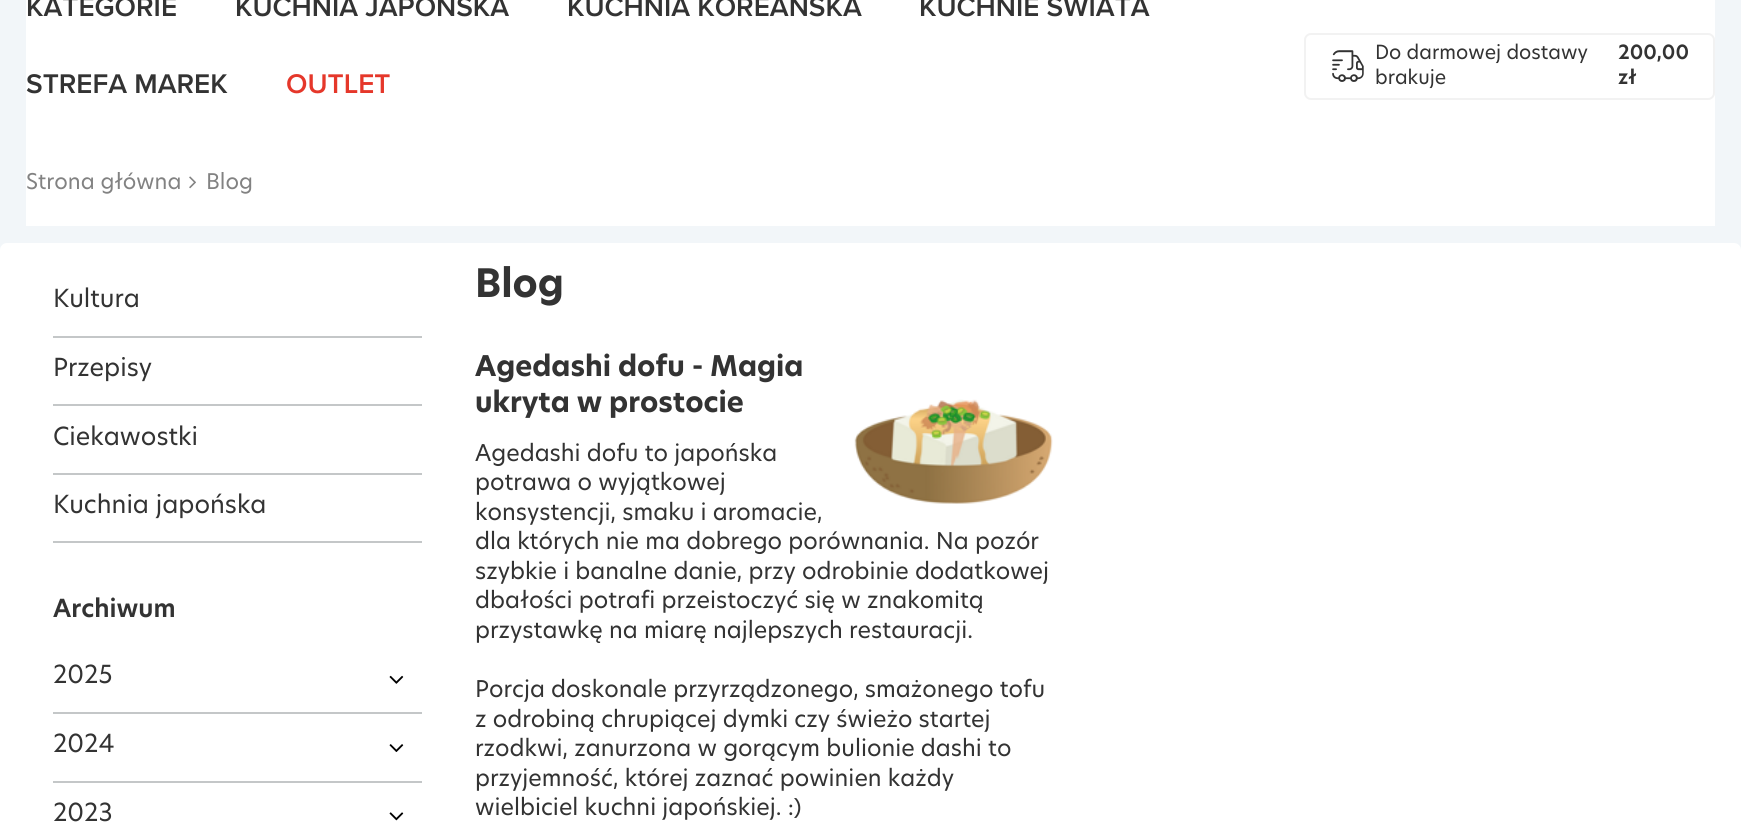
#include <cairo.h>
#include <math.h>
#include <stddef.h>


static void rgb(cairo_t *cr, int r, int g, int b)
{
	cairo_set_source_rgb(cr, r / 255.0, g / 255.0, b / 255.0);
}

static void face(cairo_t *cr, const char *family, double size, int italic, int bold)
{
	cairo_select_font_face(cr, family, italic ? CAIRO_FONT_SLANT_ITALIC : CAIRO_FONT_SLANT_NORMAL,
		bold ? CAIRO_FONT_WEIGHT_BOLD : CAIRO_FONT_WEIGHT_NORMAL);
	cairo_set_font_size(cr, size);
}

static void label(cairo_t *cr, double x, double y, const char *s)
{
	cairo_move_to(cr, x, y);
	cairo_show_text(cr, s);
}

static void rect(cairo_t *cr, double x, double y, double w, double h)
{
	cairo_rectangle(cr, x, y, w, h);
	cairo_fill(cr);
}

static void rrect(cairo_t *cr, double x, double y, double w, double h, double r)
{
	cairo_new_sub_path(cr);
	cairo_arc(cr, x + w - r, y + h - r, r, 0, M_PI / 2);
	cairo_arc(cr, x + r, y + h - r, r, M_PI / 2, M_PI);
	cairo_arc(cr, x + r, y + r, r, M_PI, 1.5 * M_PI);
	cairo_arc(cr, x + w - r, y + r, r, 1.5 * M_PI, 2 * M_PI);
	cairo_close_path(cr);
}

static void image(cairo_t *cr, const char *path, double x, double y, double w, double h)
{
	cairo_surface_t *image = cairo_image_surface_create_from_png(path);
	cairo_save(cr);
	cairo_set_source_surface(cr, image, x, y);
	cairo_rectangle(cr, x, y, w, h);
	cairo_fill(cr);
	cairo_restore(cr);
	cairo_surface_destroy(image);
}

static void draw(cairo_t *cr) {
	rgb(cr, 242, 246, 249);
	cairo_paint(cr);
	rgb(cr, 255, 255, 255);
	rect(cr, 26, 0, 1689, 226);
	face(cr, "Proxima Nova SemiBold", 28, 0, 0);
	rgb(cr, 51, 51, 51);
	label(cr, 26, 16, "KATEGORIE");
	label(cr, 235, 16, "KUCHNIA JAPOŃSKA");
	label(cr, 567, 16, "KUCHNIA KOREAŃSKA");
	label(cr, 919, 16, "KUCHNIE ŚWIATA");
	label(cr, 26, 93, "STREFA MAREK");
	rgb(cr, 229, 55, 42);
	label(cr, 286, 93, "OUTLET");
	rrect(cr, 1305, 34, 409, 65, 6);
	rgb(cr, 242, 242, 242);
	cairo_stroke(cr);
	image(cr, "image0.png", 1332, 50, 32, 32);
	face(cr, "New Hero", 19.25, 0, 0);
	rgb(cr, 51, 51, 51);
	label(cr, 1375, 59, "Do darmowej dostawy");
	label(cr, 1375, 84, "brakuje");
	face(cr, "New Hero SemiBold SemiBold", 19.25, 0, 0);
	label(cr, 1618, 59, "200,00");
	label(cr, 1618, 84, "zł");
	face(cr, "New Hero", 21.25, 0, 0);
	rgb(cr, 130, 130, 130);
	label(cr, 26, 189, "Strona główna");
	image(cr, "image1.png", 189, 176, 7, 13);
	label(cr, 206, 189, "Blog");
	rgb(cr, 255, 255, 255);
	rrect(cr, 0, 243, 1741, 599, 7);
	cairo_fill(cr);
	rgb(cr, 196, 199, 200);
	rect(cr, 53, 336, 369, 2);
	face(cr, "New Hero", 24.5, 0, 0);
	rgb(cr, 51, 51, 51);
	label(cr, 53, 307, "Kultura");
	rgb(cr, 196, 199, 200);
	rect(cr, 53, 404, 369, 2);
	rgb(cr, 51, 51, 51);
	label(cr, 53, 376, "Przepisy");
	rgb(cr, 196, 199, 200);
	rect(cr, 53, 473, 369, 2);
	rgb(cr, 51, 51, 51);
	label(cr, 53, 445, "Ciekawostki");
	rgb(cr, 196, 199, 200);
	rect(cr, 53, 541, 369, 2);
	rgb(cr, 51, 51, 51);
	label(cr, 53, 513, "Kuchnia japońska");
	face(cr, "New Hero SemiBold SemiBold", 24.5, 0, 0);
	label(cr, 53, 617, "Archiwum");
	rgb(cr, 196, 199, 200);
	rect(cr, 53, 712, 369, 2);
	face(cr, "New Hero", 24.5, 0, 0);
	rgb(cr, 51, 51, 51);
	label(cr, 53, 683, "2025");
	image(cr, "image2.png", 389, 675, 15, 9);
	rgb(cr, 196, 199, 200);
	rect(cr, 53, 781, 369, 2);
	rgb(cr, 51, 51, 51);
	label(cr, 53, 752, "2024");
	image(cr, "image3.png", 389, 744, 15, 8);
	label(cr, 53, 821, "2023");
	image(cr, "image4.png", 389, 812, 15, 9);
	face(cr, "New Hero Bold", 38.5, 0, 1);
	label(cr, 475, 297, "Blog");
	face(cr, "New Hero Bold", 28, 0, 1);
	label(cr, 475, 376, "Agedashi dofu - Magia");
	label(cr, 475, 412, "ukryta w prostocie");
	image(cr, "image5.png", 854, 399, 199, 105);
	face(cr, "New Hero", 22.75, 0, 0);
	label(cr, 475, 461, "Agedashi dofu to japońska");
	label(cr, 475, 490, "potrawa o wyjątkowej");
	label(cr, 475, 520, "konsystencji, smaku i aromacie,");
	label(cr, 475, 549, "dla których nie ma dobrego porównania. Na pozór");
	label(cr, 475, 579, "szybkie i banalne danie, przy odrobinie dodatkowej");
	label(cr, 475, 608, "dbałości potrafi przeistoczyć się w znakomitą");
	label(cr, 475, 638, "przystawkę na miarę najlepszych restauracji.");
	label(cr, 475, 697, "Porcja doskonale przyrządzonego, smażonego tofu");
	label(cr, 475, 727, "z odrobiną chrupiącej dymki czy świeżo startej");
	label(cr, 475, 756, "rzodkwi, zanurzona w gorącym bulionie dashi to");
	label(cr, 475, 786, "przyjemność, której zaznać powinien każdy");
	label(cr, 475, 815, "wielbiciel kuchni japońskiej. :)");
}

int main(void) {
	cairo_surface_t *surface = cairo_image_surface_create(CAIRO_FORMAT_RGB24, 1741, 835);
	cairo_t *cr = cairo_create(surface);
	cairo_font_options_t *options = cairo_font_options_create();
	cairo_font_options_set_hint_metrics(options, CAIRO_HINT_METRICS_OFF);
	cairo_font_options_set_hint_style(options, CAIRO_HINT_STYLE_NONE);
	cairo_set_font_options(cr, options);
	cairo_set_miter_limit(cr, 4);
	draw(cr);
	cairo_surface_write_to_png(surface, "render.png");
	cairo_font_options_destroy(options);
	cairo_destroy(cr);
	cairo_surface_destroy(surface);
	return 0;
}
